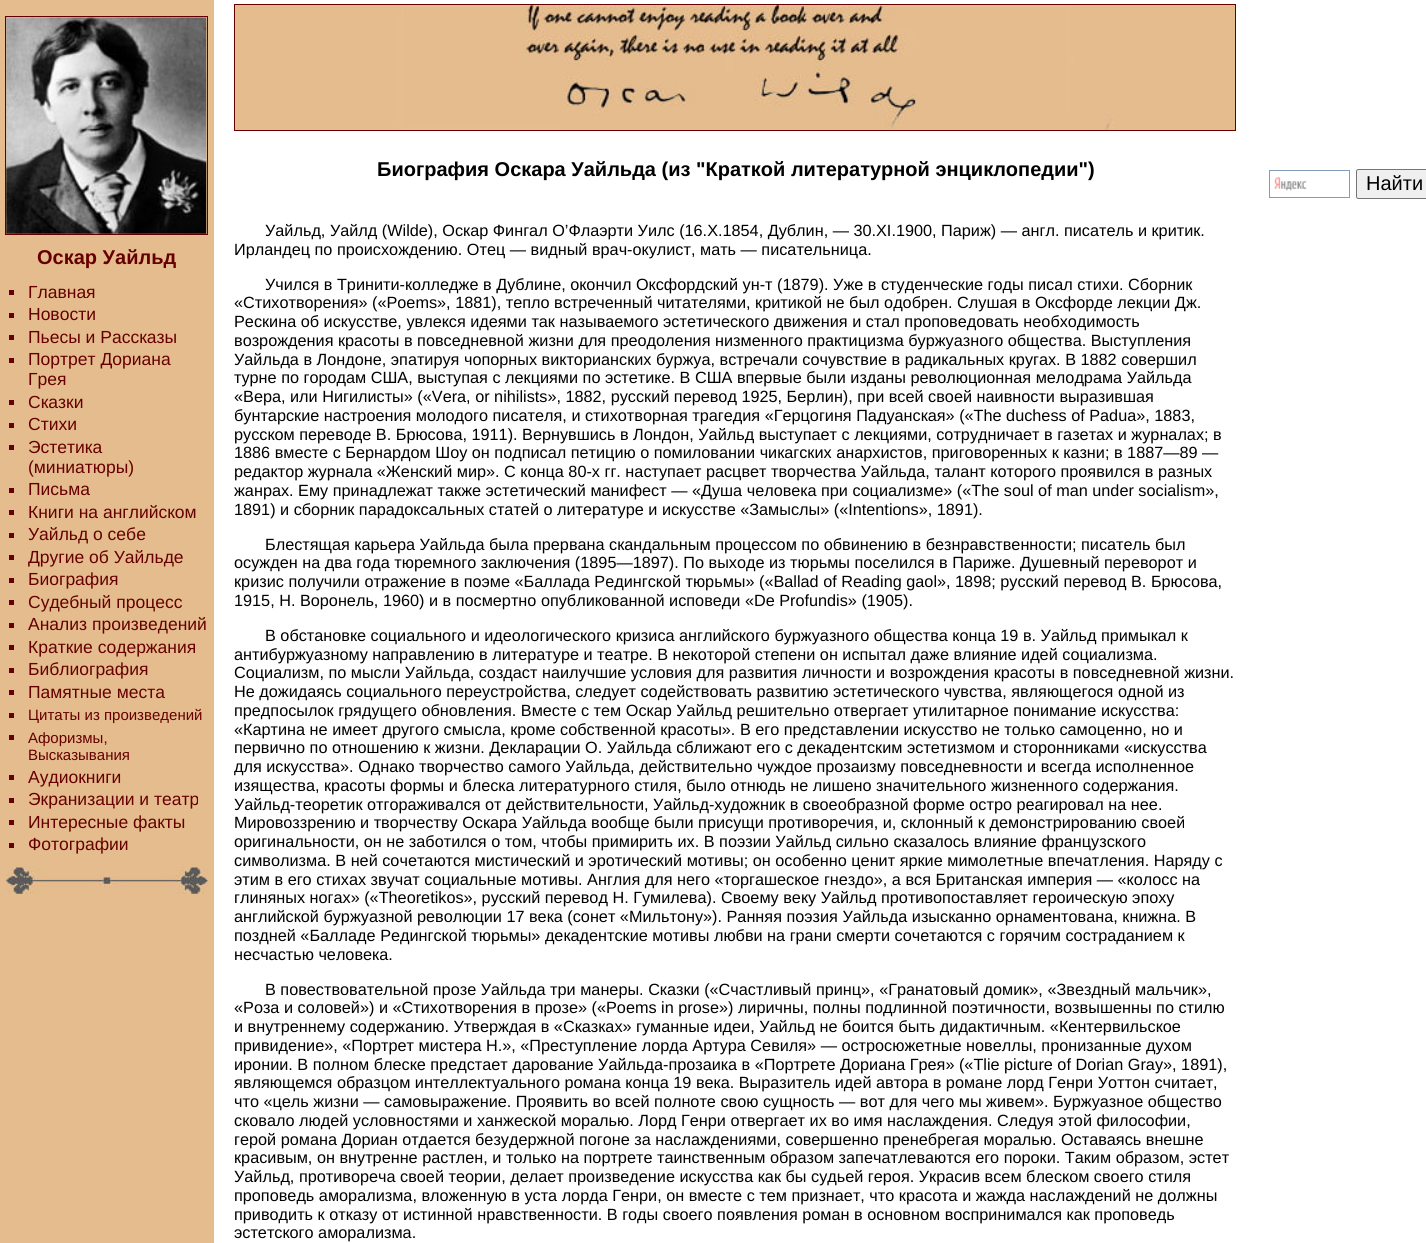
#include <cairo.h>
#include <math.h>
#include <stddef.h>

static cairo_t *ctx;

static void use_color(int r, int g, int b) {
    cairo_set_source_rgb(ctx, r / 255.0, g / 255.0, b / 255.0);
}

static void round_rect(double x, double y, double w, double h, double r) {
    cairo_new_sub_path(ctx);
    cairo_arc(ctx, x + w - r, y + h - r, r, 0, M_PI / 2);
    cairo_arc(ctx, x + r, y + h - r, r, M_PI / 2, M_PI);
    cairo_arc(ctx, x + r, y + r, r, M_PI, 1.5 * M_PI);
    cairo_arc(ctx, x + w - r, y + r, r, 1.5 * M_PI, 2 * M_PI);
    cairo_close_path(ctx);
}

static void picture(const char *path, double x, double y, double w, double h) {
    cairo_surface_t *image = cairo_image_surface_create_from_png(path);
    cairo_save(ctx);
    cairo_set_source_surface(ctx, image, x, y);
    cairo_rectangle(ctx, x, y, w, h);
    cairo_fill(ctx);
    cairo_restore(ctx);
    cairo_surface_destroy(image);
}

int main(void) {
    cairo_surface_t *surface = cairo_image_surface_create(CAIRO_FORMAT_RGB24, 1426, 1243);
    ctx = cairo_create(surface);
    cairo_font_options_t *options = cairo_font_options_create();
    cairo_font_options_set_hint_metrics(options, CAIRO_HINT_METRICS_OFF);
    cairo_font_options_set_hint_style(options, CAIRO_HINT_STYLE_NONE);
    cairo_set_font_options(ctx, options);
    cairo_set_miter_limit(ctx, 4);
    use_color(255, 255, 255);
    cairo_paint(ctx);
    cairo_rectangle(ctx, 234.5, 4.5, 1001, 126);
    use_color(102, 0, 0);
    cairo_set_line_width(ctx, 1);
    cairo_stroke(ctx);
    picture("img1.png", 235, 5, 1000, 125);
    cairo_select_font_face(ctx, "Liberation Sans", CAIRO_FONT_SLANT_NORMAL, CAIRO_FONT_WEIGHT_BOLD);
    cairo_set_font_size(ctx, 20);
    use_color(0, 0, 0);
    cairo_move_to(ctx, 377, 176);
    cairo_show_text(ctx, "Биография Оскара Уайльда (из \"Краткой литературной энциклопедии\")");
    cairo_select_font_face(ctx, "Liberation Sans", CAIRO_FONT_SLANT_NORMAL, CAIRO_FONT_WEIGHT_NORMAL);
    cairo_set_font_size(ctx, 16.25);
    cairo_move_to(ctx, 265, 236);
    cairo_show_text(ctx, "Уайльд, Уайлд (Wilde), Оскар Фингал О’Флаэрти Уилс (16.X.1854, Дублин, — 30.XI.1900, Париж) — англ. писатель и критик.");
    cairo_move_to(ctx, 234, 255);
    cairo_show_text(ctx, "Ирландец по происхождению. Отец — видный врач-окулист, мать — писательница.");
    cairo_move_to(ctx, 265, 290);
    cairo_show_text(ctx, "Учился в Тринити-колледже в Дублине, окончил Оксфордский ун-т (1879). Уже в студенческие годы писал стихи. Сборник");
    cairo_move_to(ctx, 234, 308);
    cairo_show_text(ctx, "«Стихотворения» («Poems», 1881), тепло встреченный читателями, критикой не был одобрен. Слушая в Оксфорде лекции Дж.");
    cairo_move_to(ctx, 234, 327);
    cairo_show_text(ctx, "Рескина об искусстве, увлекся идеями так называемого эстетического движения и стал проповедовать необходимость");
    cairo_move_to(ctx, 234, 346);
    cairo_show_text(ctx, "возрождения красоты в повседневной жизни для преодоления низменного практицизма буржуазного общества. Выступления");
    cairo_move_to(ctx, 234, 365);
    cairo_show_text(ctx, "Уайльда в Лондоне, эпатируя чопорных викторианских буржуа, встречали сочувствие в радикальных кругах. В 1882 совершил");
    cairo_move_to(ctx, 234, 383);
    cairo_show_text(ctx, "турне по городам США, выступая с лекциями по эстетике. В США впервые были изданы революционная мелодрама Уайльда");
    cairo_move_to(ctx, 234, 402);
    cairo_show_text(ctx, "«Вера, или Нигилисты» («Vera, or nihilists», 1882, русский перевод 1925, Берлин), при всей своей наивности выразившая");
    cairo_move_to(ctx, 234, 421);
    cairo_show_text(ctx, "бунтарские настроения молодого писателя, и стихотворная трагедия «Герцогиня Падуанская» («The duchess of Padua», 1883,");
    cairo_move_to(ctx, 234, 440);
    cairo_show_text(ctx, "русском переводе В. Брюсова, 1911). Вернувшись в Лондон, Уайльд выступает с лекциями, сотрудничает в газетах и журналах; в");
    cairo_move_to(ctx, 234, 458);
    cairo_show_text(ctx, "1886 вместе с Бернардом Шоу он подписал петицию о помиловании чикагских анархистов, приговоренных к казни; в 1887—89 —");
    cairo_move_to(ctx, 234, 477);
    cairo_show_text(ctx, "редактор журнала «Женский мир». С конца 80-х гг. наступает расцвет творчества Уайльда, талант которого проявился в разных");
    cairo_move_to(ctx, 234, 496);
    cairo_show_text(ctx, "жанрах. Ему принадлежат также эстетический манифест — «Душа человека при социализме» («The soul of man under socialism»,");
    cairo_move_to(ctx, 234, 515);
    cairo_show_text(ctx, "1891) и сборник парадоксальных статей о литературе и искусстве «Замыслы» («Intentions», 1891).");
    cairo_move_to(ctx, 265, 550);
    cairo_show_text(ctx, "Блестящая карьера Уайльда была прервана скандальным процессом по обвинению в безнравственности; писатель был");
    cairo_move_to(ctx, 234, 568);
    cairo_show_text(ctx, "осужден на два года тюремного заключения (1895—1897). По выходе из тюрьмы поселился в Париже. Душевный переворот и");
    cairo_move_to(ctx, 234, 587);
    cairo_show_text(ctx, "кризис получили отражение в поэме «Баллада Редингской тюрьмы» («Ballad of Reading gaol», 1898; русский перевод В. Брюсова,");
    cairo_move_to(ctx, 234, 606);
    cairo_show_text(ctx, "1915, Н. Воронель, 1960) и в посмертно опубликованной исповеди «De Profundis» (1905).");
    cairo_move_to(ctx, 265, 641);
    cairo_show_text(ctx, "В обстановке социального и идеологического кризиса английского буржуазного общества конца 19 в. Уайльд примыкал к");
    cairo_move_to(ctx, 234, 660);
    cairo_show_text(ctx, "антибуржуазному направлению в литературе и театре. В некоторой степени он испытал даже влияние идей социализма.");
    cairo_move_to(ctx, 234, 678);
    cairo_show_text(ctx, "Социализм, по мысли Уайльда, создаст наилучшие условия для развития личности и возрождения красоты в повседневной жизни.");
    cairo_move_to(ctx, 234, 697);
    cairo_show_text(ctx, "Не дожидаясь социального переустройства, следует содействовать развитию эстетического чувства, являющегося одной из");
    cairo_move_to(ctx, 234, 716);
    cairo_show_text(ctx, "предпосылок грядущего обновления. Вместе с тем Оскар Уайльд решительно отвергает утилитарное понимание искусства:");
    cairo_move_to(ctx, 234, 735);
    cairo_show_text(ctx, "«Картина не имеет другого смысла, кроме собственной красоты». В его представлении искусство не только самоценно, но и");
    cairo_move_to(ctx, 234, 753);
    cairo_show_text(ctx, "первично по отношению к жизни. Декларации О. Уайльда сближают его с декадентским эстетизмом и сторонниками «искусства");
    cairo_move_to(ctx, 234, 772);
    cairo_show_text(ctx, "для искусства». Однако творчество самого Уайльда, действительно чуждое прозаизму повседневности и всегда исполненное");
    cairo_move_to(ctx, 234, 791);
    cairo_show_text(ctx, "изящества, красоты формы и блеска литературного стиля, было отнюдь не лишено значительного жизненного содержания.");
    cairo_move_to(ctx, 234, 810);
    cairo_show_text(ctx, "Уайльд-теоретик отгораживался от действительности, Уайльд-художник в своеобразной форме остро реагировал на нее.");
    cairo_move_to(ctx, 234, 828);
    cairo_show_text(ctx, "Мировоззрению и творчеству Оскара Уайльда вообще были присущи противоречия, и, склонный к демонстрированию своей");
    cairo_move_to(ctx, 234, 847);
    cairo_show_text(ctx, "оригинальности, он не заботился о том, чтобы примирить их. В поэзии Уайльд сильно сказалось влияние французского");
    cairo_move_to(ctx, 234, 866);
    cairo_show_text(ctx, "символизма. В ней сочетаются мистический и эротический мотивы; он особенно ценит яркие мимолетные впечатления. Наряду с");
    cairo_move_to(ctx, 234, 885);
    cairo_show_text(ctx, "этим в его стихах звучат социальные мотивы. Англия для него «торгашеское гнездо», а вся Британская империя — «колосс на");
    cairo_move_to(ctx, 234, 903);
    cairo_show_text(ctx, "глиняных ногах» («Theoretikos», русский перевод Н. Гумилева). Своему веку Уайльд противопоставляет героическую эпоху");
    cairo_move_to(ctx, 234, 922);
    cairo_show_text(ctx, "английской буржуазной революции 17 века (сонет «Мильтону»). Ранняя поэзия Уайльда изысканно орнаментована, книжна. В");
    cairo_move_to(ctx, 234, 941);
    cairo_show_text(ctx, "поздней «Балладе Редингской тюрьмы» декадентские мотивы любви на грани смерти сочетаются с горячим состраданием к");
    cairo_move_to(ctx, 234, 960);
    cairo_show_text(ctx, "несчастью человека.");
    cairo_move_to(ctx, 265, 995);
    cairo_show_text(ctx, "В повествовательной прозе Уайльда три манеры. Сказки («Счастливый принц», «Гранатовый домик», «Звездный мальчик»,");
    cairo_move_to(ctx, 234, 1013);
    cairo_show_text(ctx, "«Роза и соловей») и «Стихотворения в прозе» («Poems in prose») лиричны, полны подлинной поэтичности, возвышенны по стилю");
    cairo_move_to(ctx, 234, 1032);
    cairo_show_text(ctx, "и внутреннему содержанию. Утверждая в «Сказках» гуманные идеи, Уайльд не боится быть дидактичным. «Кентервильское");
    cairo_move_to(ctx, 234, 1051);
    cairo_show_text(ctx, "привидение», «Портрет мистера Н.», «Преступление лорда Артура Севиля» — остросюжетные новеллы, пронизанные духом");
    cairo_move_to(ctx, 234, 1070);
    cairo_show_text(ctx, "иронии. В полном блеске предстает дарование Уайльда-прозаика в «Портрете Дориана Грея» («Tlie picture of Dorian Gray», 1891),");
    cairo_move_to(ctx, 234, 1088);
    cairo_show_text(ctx, "являющемся образцом интеллектуального романа конца 19 века. Выразитель идей автора в романе лорд Генри Уоттон считает,");
    cairo_move_to(ctx, 234, 1107);
    cairo_show_text(ctx, "что «цель жизни — самовыражение. Проявить во всей полноте свою сущность — вот для чего мы живем». Буржуазное общество");
    cairo_move_to(ctx, 234, 1126);
    cairo_show_text(ctx, "сковало людей условностями и ханжеской моралью. Лорд Генри отвергает их во имя наслаждения. Следуя этой философии,");
    cairo_move_to(ctx, 234, 1145);
    cairo_show_text(ctx, "герой романа Дориан отдается безудержной погоне за наслаждениями, совершенно пренебрегая моралью. Оставаясь внешне");
    cairo_move_to(ctx, 234, 1163);
    cairo_show_text(ctx, "красивым, он внутренне растлен, и только на портрете таинственным образом запечатлеваются его пороки. Таким образом, эстет");
    cairo_move_to(ctx, 234, 1182);
    cairo_show_text(ctx, "Уайльд, противореча своей теории, делает произведение искусства как бы судьей героя. Украсив всем блеском своего стиля");
    cairo_move_to(ctx, 234, 1201);
    cairo_show_text(ctx, "проповедь аморализма, вложенную в уста лорда Генри, он вместе с тем признает, что красота и жажда наслаждений не должны");
    cairo_move_to(ctx, 234, 1220);
    cairo_show_text(ctx, "приводить к отказу от истинной нравственности. В годы своего появления роман в основном воспринимался как проповедь");
    cairo_move_to(ctx, 234, 1238);
    cairo_show_text(ctx, "эстетского аморализма.");
    picture("img2.png", 1274, 177, 33, 14);
    cairo_rectangle(ctx, 1269.5, 170.5, 80, 27);
    use_color(127, 157, 185);
    cairo_stroke(ctx);
    use_color(239, 239, 239);
    round_rect(1356.5, 169.5, 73, 29, 2);
    cairo_fill_preserve(ctx);
    use_color(118, 118, 118);
    cairo_stroke(ctx);
    cairo_set_font_size(ctx, 20);
    use_color(0, 0, 0);
    cairo_move_to(ctx, 1366, 190);
    cairo_show_text(ctx, "Найти");
    use_color(228, 188, 142);
    cairo_rectangle(ctx, 0, 0, 214, 1243);
    cairo_fill(ctx);
    cairo_rectangle(ctx, 5.5, 16.5, 202, 218);
    use_color(102, 0, 0);
    cairo_stroke(ctx);
    picture("img3.png", 6, 17, 201, 217);
    cairo_select_font_face(ctx, "Liberation Sans", CAIRO_FONT_SLANT_NORMAL, CAIRO_FONT_WEIGHT_BOLD);
    cairo_move_to(ctx, 37, 264);
    cairo_show_text(ctx, "Оскар Уайльд");
    cairo_rectangle(ctx, 9, 290, 5, 5);
    cairo_fill(ctx);
    cairo_select_font_face(ctx, "Liberation Sans", CAIRO_FONT_SLANT_NORMAL, CAIRO_FONT_WEIGHT_NORMAL);
    cairo_set_font_size(ctx, 17.5);
    cairo_move_to(ctx, 28, 298);
    cairo_show_text(ctx, "Главная");
    cairo_rectangle(ctx, 9, 313, 5, 5);
    cairo_fill(ctx);
    cairo_move_to(ctx, 28, 320);
    cairo_show_text(ctx, "Новости");
    cairo_rectangle(ctx, 9, 335, 5, 5);
    cairo_fill(ctx);
    cairo_move_to(ctx, 28, 343);
    cairo_show_text(ctx, "Пьесы и Рассказы");
    cairo_rectangle(ctx, 9, 358, 5, 5);
    cairo_fill(ctx);
    cairo_move_to(ctx, 28, 365);
    cairo_show_text(ctx, "Портрет Дориана");
    cairo_move_to(ctx, 28, 385);
    cairo_show_text(ctx, "Грея");
    cairo_rectangle(ctx, 9, 400, 5, 5);
    cairo_fill(ctx);
    cairo_move_to(ctx, 28, 408);
    cairo_show_text(ctx, "Сказки");
    cairo_rectangle(ctx, 9, 423, 5, 5);
    cairo_fill(ctx);
    cairo_move_to(ctx, 28, 430);
    cairo_show_text(ctx, "Стихи");
    cairo_rectangle(ctx, 9, 445, 5, 5);
    cairo_fill(ctx);
    cairo_move_to(ctx, 28, 453);
    cairo_show_text(ctx, "Эстетика");
    cairo_move_to(ctx, 28, 473);
    cairo_show_text(ctx, "(миниатюры)");
    cairo_rectangle(ctx, 9, 488, 5, 5);
    cairo_fill(ctx);
    cairo_move_to(ctx, 28, 495);
    cairo_show_text(ctx, "Письма");
    cairo_rectangle(ctx, 9, 510, 5, 5);
    cairo_fill(ctx);
    cairo_move_to(ctx, 28, 518);
    cairo_show_text(ctx, "Книги на английском");
    cairo_rectangle(ctx, 9, 533, 5, 5);
    cairo_fill(ctx);
    cairo_move_to(ctx, 28, 540);
    cairo_show_text(ctx, "Уайльд о себе");
    cairo_rectangle(ctx, 9, 555, 5, 5);
    cairo_fill(ctx);
    cairo_move_to(ctx, 28, 563);
    cairo_show_text(ctx, "Другие об Уайльде");
    cairo_rectangle(ctx, 9, 578, 5, 5);
    cairo_fill(ctx);
    cairo_move_to(ctx, 28, 585);
    cairo_show_text(ctx, "Биография");
    cairo_rectangle(ctx, 9, 600, 5, 5);
    cairo_fill(ctx);
    cairo_move_to(ctx, 28, 608);
    cairo_show_text(ctx, "Судебный процесс");
    cairo_rectangle(ctx, 9, 623, 5, 5);
    cairo_fill(ctx);
    cairo_move_to(ctx, 28, 630);
    cairo_show_text(ctx, "Анализ произведений");
    cairo_rectangle(ctx, 9, 645, 5, 5);
    cairo_fill(ctx);
    cairo_move_to(ctx, 28, 653);
    cairo_show_text(ctx, "Краткие содержания");
    cairo_rectangle(ctx, 9, 668, 5, 5);
    cairo_fill(ctx);
    cairo_move_to(ctx, 28, 675);
    cairo_show_text(ctx, "Библиография");
    cairo_rectangle(ctx, 9, 690, 5, 5);
    cairo_fill(ctx);
    cairo_move_to(ctx, 28, 698);
    cairo_show_text(ctx, "Памятные места");
    cairo_rectangle(ctx, 9, 713, 5, 5);
    cairo_fill(ctx);
    cairo_set_font_size(ctx, 15);
    cairo_move_to(ctx, 28, 720);
    cairo_show_text(ctx, "Цитаты из произведений");
    cairo_rectangle(ctx, 9, 735, 5, 5);
    cairo_fill(ctx);
    cairo_move_to(ctx, 28, 743);
    cairo_show_text(ctx, "Афоризмы,");
    cairo_move_to(ctx, 28, 760);
    cairo_show_text(ctx, "Высказывания");
    cairo_rectangle(ctx, 9, 775, 5, 5);
    cairo_fill(ctx);
    cairo_set_font_size(ctx, 17.5);
    cairo_move_to(ctx, 28, 783);
    cairo_show_text(ctx, "Аудиокниги");
    cairo_rectangle(ctx, 9, 798, 5, 5);
    cairo_fill(ctx);
    cairo_move_to(ctx, 28, 805);
    cairo_show_text(ctx, "Экранизации и театр");
    cairo_rectangle(ctx, 9, 820, 5, 5);
    cairo_fill(ctx);
    cairo_move_to(ctx, 28, 828);
    cairo_show_text(ctx, "Интересные факты");
    cairo_rectangle(ctx, 9, 843, 5, 5);
    cairo_fill(ctx);
    cairo_move_to(ctx, 28, 850);
    cairo_show_text(ctx, "Фотографии");
    picture("img4.png", 6, 867, 202, 27);
    cairo_surface_write_to_png(surface, "result.png");
    cairo_font_options_destroy(options);
    cairo_destroy(ctx);
    cairo_surface_destroy(surface);
    return 0;
}
